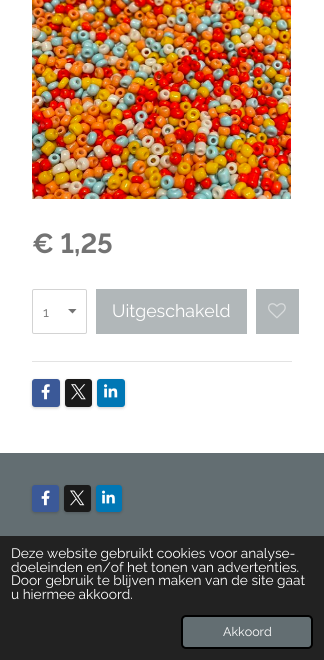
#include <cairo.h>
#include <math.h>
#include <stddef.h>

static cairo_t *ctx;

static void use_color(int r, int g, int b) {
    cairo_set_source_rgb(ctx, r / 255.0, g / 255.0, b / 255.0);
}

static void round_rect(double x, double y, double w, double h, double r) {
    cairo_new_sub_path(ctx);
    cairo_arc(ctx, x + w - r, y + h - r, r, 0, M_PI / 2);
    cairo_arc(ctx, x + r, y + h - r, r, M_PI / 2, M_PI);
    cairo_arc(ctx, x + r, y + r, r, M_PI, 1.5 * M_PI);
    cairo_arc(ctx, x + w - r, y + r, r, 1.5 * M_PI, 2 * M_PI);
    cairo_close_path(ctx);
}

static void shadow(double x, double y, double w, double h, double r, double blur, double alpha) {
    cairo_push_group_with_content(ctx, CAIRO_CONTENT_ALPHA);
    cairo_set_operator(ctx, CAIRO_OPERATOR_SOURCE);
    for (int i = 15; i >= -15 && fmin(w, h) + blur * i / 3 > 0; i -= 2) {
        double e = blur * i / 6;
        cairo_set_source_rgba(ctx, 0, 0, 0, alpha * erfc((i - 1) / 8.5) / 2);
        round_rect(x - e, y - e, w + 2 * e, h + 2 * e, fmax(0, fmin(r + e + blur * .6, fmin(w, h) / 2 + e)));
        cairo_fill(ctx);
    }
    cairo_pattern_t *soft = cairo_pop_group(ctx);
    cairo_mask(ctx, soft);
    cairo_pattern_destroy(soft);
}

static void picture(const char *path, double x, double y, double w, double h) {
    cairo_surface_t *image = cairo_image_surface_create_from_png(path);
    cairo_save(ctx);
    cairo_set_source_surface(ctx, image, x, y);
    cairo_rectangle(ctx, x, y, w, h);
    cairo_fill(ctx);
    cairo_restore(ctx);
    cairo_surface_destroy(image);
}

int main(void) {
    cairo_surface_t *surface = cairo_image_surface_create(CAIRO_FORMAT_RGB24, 324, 660);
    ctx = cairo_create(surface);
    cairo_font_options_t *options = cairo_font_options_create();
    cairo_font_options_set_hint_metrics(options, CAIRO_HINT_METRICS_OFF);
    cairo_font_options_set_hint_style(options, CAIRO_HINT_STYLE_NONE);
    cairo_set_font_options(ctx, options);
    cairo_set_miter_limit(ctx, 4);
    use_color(255, 255, 255);
    cairo_paint(ctx);
    picture("img1.png", 32, 0, 259, 199);
    cairo_select_font_face(ctx, "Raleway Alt", CAIRO_FONT_SLANT_NORMAL, CAIRO_FONT_WEIGHT_BOLD);
    cairo_set_font_size(ctx, 27.5);
    use_color(115, 115, 115);
    cairo_move_to(ctx, 32, 253);
    cairo_show_text(ctx, "€ 1,25");
    cairo_new_path(ctx);
    cairo_move_to(ctx, 72.5, 313.5);
    cairo_line_to(ctx, 68, 309);
    cairo_line_to(ctx, 76.5, 309);
    cairo_close_path(ctx);
    cairo_fill(ctx);
    round_rect(32.5, 289.5, 54, 44, 1.5);
    use_color(211, 211, 211);
    cairo_set_line_width(ctx, 1);
    cairo_stroke(ctx);
    cairo_select_font_face(ctx, "Raleway", CAIRO_FONT_SLANT_NORMAL, CAIRO_FONT_WEIGHT_NORMAL);
    cairo_set_font_size(ctx, 13.7);
    use_color(115, 115, 115);
    cairo_move_to(ctx, 43, 317);
    cairo_show_text(ctx, "1");
    use_color(177, 183, 185);
    cairo_rectangle(ctx, 96, 289, 151, 45);
    cairo_fill(ctx);
    cairo_set_font_size(ctx, 17.75);
    use_color(255, 255, 255);
    cairo_move_to(ctx, 112, 317);
    cairo_show_text(ctx, "Uitgeschakeld");
    use_color(177, 183, 185);
    cairo_rectangle(ctx, 256, 289, 43, 45);
    cairo_fill(ctx);
    picture("img2.png", 268, 303, 18, 16);
    use_color(227, 227, 227);
    cairo_rectangle(ctx, 32, 361, 260, 1);
    cairo_fill(ctx);
    use_color(0, 0, 0);
    shadow(32, 380, 28, 28, 3, 1.5, 0.2);
    use_color(59, 89, 152);
    round_rect(32, 379, 28, 28, 3);
    cairo_fill(ctx);
    picture("img3.png", 41, 384, 9, 16);
    use_color(0, 0, 0);
    shadow(65, 380, 27, 28, 3, 1.5, 0.2);
    use_color(26, 26, 26);
    round_rect(65, 379, 27, 28, 3);
    cairo_fill(ctx);
    picture("img4.png", 71, 384, 15, 16);
    use_color(0, 0, 0);
    shadow(97, 380, 28, 28, 3, 1.5, 0.2);
    use_color(0, 119, 181);
    round_rect(97, 379, 28, 28, 3);
    cairo_fill(ctx);
    picture("img5.png", 104, 384, 14, 14);
    use_color(99, 110, 114);
    cairo_rectangle(ctx, 0, 453, 324, 83);
    cairo_fill(ctx);
    use_color(0, 0, 0);
    shadow(32, 486, 27, 27, 3, 1.5, 0.2);
    use_color(59, 89, 152);
    round_rect(32, 485, 27, 27, 3);
    cairo_fill(ctx);
    picture("img6.png", 41, 490, 9, 16);
    use_color(0, 0, 0);
    shadow(64, 486, 27, 27, 3, 1.5, 0.2);
    use_color(26, 26, 26);
    round_rect(64, 485, 27, 27, 3);
    cairo_fill(ctx);
    picture("img7.png", 70, 490, 15, 16);
    use_color(0, 0, 0);
    shadow(96, 486, 26, 27, 3, 1.5, 0.2);
    use_color(0, 119, 181);
    round_rect(96, 485, 26, 27, 3);
    cairo_fill(ctx);
    picture("img8.png", 102, 490, 13, 14);
    use_color(34, 34, 34);
    cairo_rectangle(ctx, 0, 536, 324, 124);
    cairo_fill(ctx);
    cairo_set_font_size(ctx, 13.7);
    use_color(255, 255, 255);
    cairo_move_to(ctx, 11, 558);
    cairo_show_text(ctx, "Deze website gebruikt cookies voor analyse-");
    cairo_move_to(ctx, 11, 572);
    cairo_show_text(ctx, "doeleinden en/of het tonen van advertenties.");
    cairo_move_to(ctx, 11, 585);
    cairo_show_text(ctx, "Door gebruik te blijven maken van de site gaat");
    cairo_move_to(ctx, 11, 599);
    cairo_show_text(ctx, "u hiermee akkoord.");
    use_color(99, 110, 114);
    round_rect(182, 616, 130, 32, 4);
    cairo_fill_preserve(ctx);
    use_color(0, 0, 0);
    cairo_set_line_width(ctx, 2);
    cairo_stroke(ctx);
    cairo_set_font_size(ctx, 12.5);
    use_color(255, 255, 255);
    cairo_move_to(ctx, 223, 636);
    cairo_show_text(ctx, "Akkoord");
    cairo_surface_write_to_png(surface, "result.png");
    cairo_font_options_destroy(options);
    cairo_destroy(ctx);
    cairo_surface_destroy(surface);
    return 0;
}
